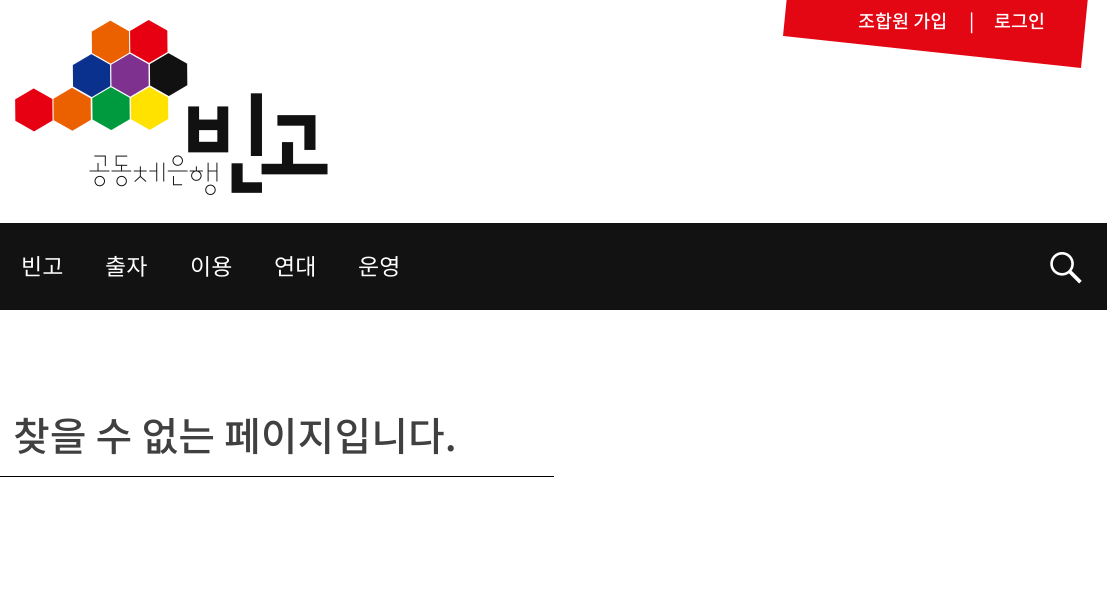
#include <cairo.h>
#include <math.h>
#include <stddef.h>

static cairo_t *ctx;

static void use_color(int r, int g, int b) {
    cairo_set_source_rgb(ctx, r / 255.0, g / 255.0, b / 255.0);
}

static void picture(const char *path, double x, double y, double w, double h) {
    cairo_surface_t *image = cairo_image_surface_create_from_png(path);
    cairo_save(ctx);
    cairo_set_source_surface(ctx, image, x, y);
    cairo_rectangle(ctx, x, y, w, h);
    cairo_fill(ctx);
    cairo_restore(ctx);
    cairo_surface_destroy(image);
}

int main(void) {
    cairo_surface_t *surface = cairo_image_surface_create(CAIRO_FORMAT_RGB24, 1107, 614);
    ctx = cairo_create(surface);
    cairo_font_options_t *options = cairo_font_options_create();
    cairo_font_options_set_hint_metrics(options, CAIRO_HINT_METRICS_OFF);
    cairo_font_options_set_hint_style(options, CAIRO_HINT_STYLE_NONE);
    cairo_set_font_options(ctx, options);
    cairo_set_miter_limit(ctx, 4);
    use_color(255, 255, 255);
    cairo_paint(ctx);
    picture("img1.png", 15, 20, 313, 175);
    use_color(227, 6, 19);
    cairo_new_path(ctx);
    cairo_move_to(ctx, 791, -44);
    cairo_line_to(ctx, 1089, -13);
    cairo_line_to(ctx, 1081, 68);
    cairo_line_to(ctx, 783, 36);
    cairo_close_path(ctx);
    cairo_fill(ctx);
    cairo_select_font_face(ctx, "Noto Sans KR Medium", CAIRO_FONT_SLANT_NORMAL, CAIRO_FONT_WEIGHT_NORMAL);
    cairo_set_font_size(ctx, 18.5);
    use_color(255, 255, 255);
    cairo_move_to(ctx, 858, 28);
    cairo_show_text(ctx, "조합원 가입");
    cairo_move_to(ctx, 969, 28);
    cairo_show_text(ctx, "|");
    cairo_move_to(ctx, 994, 28);
    cairo_show_text(ctx, "로그인");
    use_color(18, 18, 18);
    cairo_rectangle(ctx, 0, 223, 1107, 87);
    cairo_fill(ctx);
    cairo_select_font_face(ctx, "Noto Sans KR", CAIRO_FONT_SLANT_NORMAL, CAIRO_FONT_WEIGHT_NORMAL);
    cairo_set_font_size(ctx, 23);
    use_color(255, 255, 255);
    cairo_move_to(ctx, 21, 275);
    cairo_show_text(ctx, "빈고");
    cairo_move_to(ctx, 105, 275);
    cairo_show_text(ctx, "출자");
    cairo_move_to(ctx, 190, 275);
    cairo_show_text(ctx, "이용");
    cairo_move_to(ctx, 274, 275);
    cairo_show_text(ctx, "연대");
    cairo_move_to(ctx, 358, 275);
    cairo_show_text(ctx, "운영");
    picture("img2.png", 1050, 252, 32, 32);
    cairo_select_font_face(ctx, "Noto Sans KR Medium", CAIRO_FONT_SLANT_NORMAL, CAIRO_FONT_WEIGHT_NORMAL);
    cairo_set_font_size(ctx, 40);
    use_color(64, 64, 64);
    cairo_move_to(ctx, 13, 451);
    cairo_show_text(ctx, "찾을 수 없는 페이지입니다.");
    use_color(0, 0, 0);
    cairo_rectangle(ctx, 0, 476, 554, 1);
    cairo_fill(ctx);
    cairo_surface_write_to_png(surface, "result.png");
    cairo_font_options_destroy(options);
    cairo_destroy(ctx);
    cairo_surface_destroy(surface);
    return 0;
}
